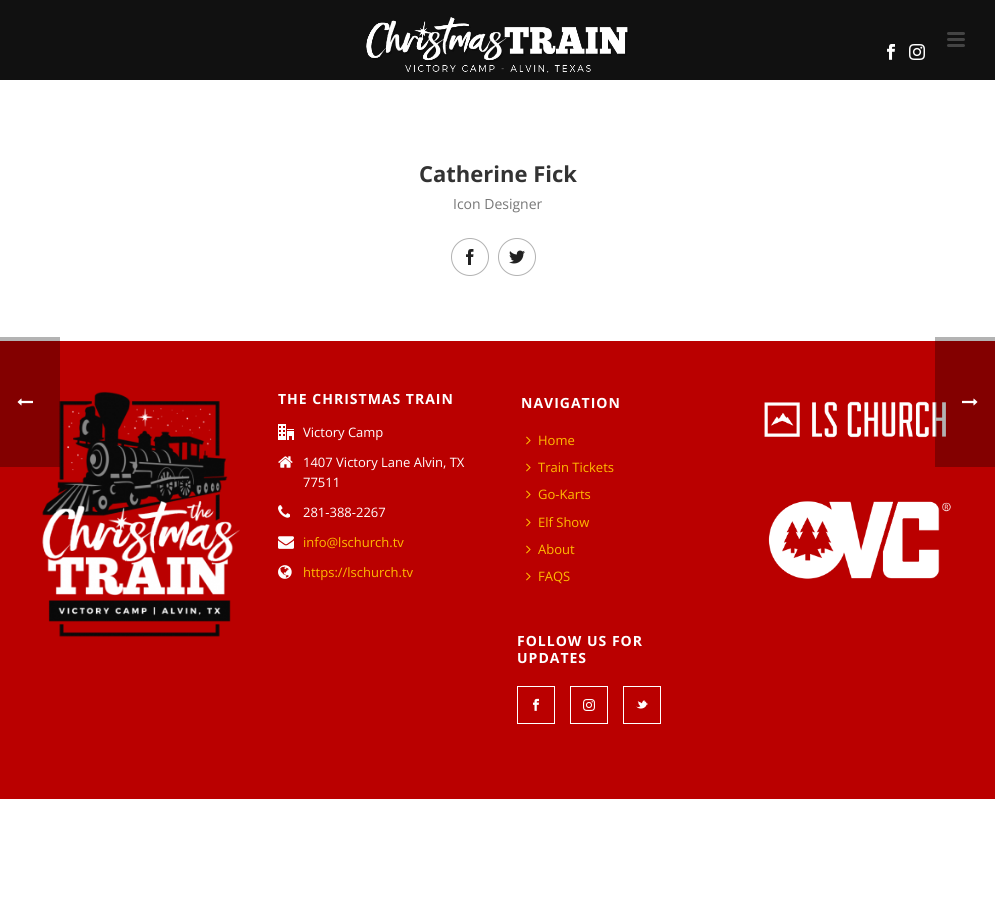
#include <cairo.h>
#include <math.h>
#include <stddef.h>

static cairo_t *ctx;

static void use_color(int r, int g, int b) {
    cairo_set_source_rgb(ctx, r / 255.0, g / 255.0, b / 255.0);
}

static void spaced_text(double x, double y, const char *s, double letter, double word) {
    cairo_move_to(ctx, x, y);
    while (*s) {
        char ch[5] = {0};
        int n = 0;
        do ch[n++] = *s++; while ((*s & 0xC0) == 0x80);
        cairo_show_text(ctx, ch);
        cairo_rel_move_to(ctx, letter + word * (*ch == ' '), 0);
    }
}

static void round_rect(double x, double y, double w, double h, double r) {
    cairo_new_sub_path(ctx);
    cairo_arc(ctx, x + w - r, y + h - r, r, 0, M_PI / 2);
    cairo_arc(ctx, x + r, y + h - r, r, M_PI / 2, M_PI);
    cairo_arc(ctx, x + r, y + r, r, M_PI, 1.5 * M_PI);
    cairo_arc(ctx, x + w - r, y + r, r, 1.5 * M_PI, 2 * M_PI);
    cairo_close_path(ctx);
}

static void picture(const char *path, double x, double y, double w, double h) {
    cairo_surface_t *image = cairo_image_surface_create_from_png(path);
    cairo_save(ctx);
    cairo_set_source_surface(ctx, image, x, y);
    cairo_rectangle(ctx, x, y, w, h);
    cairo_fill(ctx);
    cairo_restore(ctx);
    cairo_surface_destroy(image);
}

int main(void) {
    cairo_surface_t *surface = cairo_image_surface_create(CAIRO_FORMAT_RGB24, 995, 904);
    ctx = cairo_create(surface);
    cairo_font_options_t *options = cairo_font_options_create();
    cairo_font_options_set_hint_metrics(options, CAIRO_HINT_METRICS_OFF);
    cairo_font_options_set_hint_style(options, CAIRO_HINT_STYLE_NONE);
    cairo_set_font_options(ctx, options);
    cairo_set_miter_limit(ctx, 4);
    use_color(255, 255, 255);
    cairo_paint(ctx);
    use_color(186, 0, 0);
    cairo_rectangle(ctx, 0, 341, 995, 458);
    cairo_fill(ctx);
    picture("img7.png", 42, 391, 198, 246);
    cairo_set_source_rgba(ctx, 0, 0, 0, 0.3);
    cairo_rectangle(ctx, 0, 337, 60, 130);
    cairo_fill(ctx);
    picture("img1.png", 17, 398, 16, 8);
    use_color(17, 17, 17);
    cairo_rectangle(ctx, 0, 0, 995, 80);
    cairo_fill(ctx);
    picture("img2.png", 366, 17, 263, 56);
    use_color(68, 68, 68);
    round_rect(947, 32, 18, 3, 1.5);
    cairo_fill(ctx);
    round_rect(947, 38, 18, 3, 1.5);
    cairo_fill(ctx);
    round_rect(947, 44, 18, 3, 1.5);
    cairo_fill(ctx);
    picture("img3.png", 887, 44, 8, 16);
    picture("img4.png", 909, 44, 16, 16);
    cairo_select_font_face(ctx, "Open Sans", CAIRO_FONT_SLANT_NORMAL, CAIRO_FONT_WEIGHT_BOLD);
    cairo_set_font_size(ctx, 22);
    use_color(51, 51, 51);
    cairo_move_to(ctx, 419, 182);
    cairo_show_text(ctx, "Catherine Fick");
    cairo_select_font_face(ctx, "Open Sans", CAIRO_FONT_SLANT_NORMAL, CAIRO_FONT_WEIGHT_NORMAL);
    cairo_set_font_size(ctx, 14);
    use_color(119, 119, 119);
    cairo_move_to(ctx, 453, 209);
    cairo_show_text(ctx, "Icon Designer");
    cairo_new_path(ctx);
    cairo_arc(ctx, 470, 257, 18.5, 0, 2 * M_PI);
    use_color(178, 178, 178);
    cairo_set_line_width(ctx, 1);
    cairo_stroke(ctx);
    picture("img5.png", 466, 249, 8, 16);
    cairo_arc(ctx, 517, 257, 18.5, 0, 2 * M_PI);
    cairo_stroke(ctx);
    picture("img6.png", 509, 250, 16, 14);
    cairo_select_font_face(ctx, "Open Sans", CAIRO_FONT_SLANT_NORMAL, CAIRO_FONT_WEIGHT_BOLD);
    use_color(255, 255, 255);
    spaced_text(278, 404, "THE CHRISTMAS TRAIN", 1, 0);
    picture("img8.png", 278, 424, 16, 16);
    cairo_select_font_face(ctx, "Open Sans", CAIRO_FONT_SLANT_NORMAL, CAIRO_FONT_WEIGHT_NORMAL);
    cairo_set_font_size(ctx, 13);
    cairo_move_to(ctx, 303, 437);
    cairo_show_text(ctx, "Victory Camp");
    picture("img9.png", 278, 456, 15, 12);
    cairo_move_to(ctx, 303, 467);
    cairo_show_text(ctx, "1407 Victory Lane Alvin, TX");
    cairo_move_to(ctx, 303, 487);
    cairo_show_text(ctx, "77511");
    picture("img10.png", 278, 505, 12, 13);
    cairo_move_to(ctx, 303, 517);
    cairo_show_text(ctx, "281-388-2267");
    picture("img11.png", 278, 536, 16, 13);
    use_color(255, 187, 0);
    cairo_move_to(ctx, 303, 547);
    cairo_show_text(ctx, "info@lschurch.tv");
    picture("img12.png", 278, 565, 14, 14);
    cairo_move_to(ctx, 303, 577);
    cairo_show_text(ctx, "https://lschurch.tv");
    cairo_select_font_face(ctx, "Open Sans", CAIRO_FONT_SLANT_NORMAL, CAIRO_FONT_WEIGHT_BOLD);
    cairo_set_font_size(ctx, 14);
    use_color(255, 255, 255);
    spaced_text(521, 408, "NAVIGATION", 1, 0);
    picture("img13.png", 526, 436, 5, 9);
    cairo_select_font_face(ctx, "Open Sans", CAIRO_FONT_SLANT_NORMAL, CAIRO_FONT_WEIGHT_NORMAL);
    cairo_set_font_size(ctx, 13);
    use_color(255, 187, 0);
    cairo_move_to(ctx, 538, 445);
    cairo_show_text(ctx, "Home");
    picture("img13.png", 526, 463, 5, 9);
    cairo_move_to(ctx, 538, 472);
    cairo_show_text(ctx, "Train Tickets");
    picture("img13.png", 526, 490, 5, 9);
    cairo_move_to(ctx, 538, 499);
    cairo_show_text(ctx, "Go-Karts");
    picture("img13.png", 526, 518, 5, 9);
    cairo_move_to(ctx, 538, 527);
    cairo_show_text(ctx, "Elf Show");
    picture("img13.png", 526, 545, 5, 9);
    cairo_move_to(ctx, 538, 554);
    cairo_show_text(ctx, "About");
    picture("img13.png", 526, 572, 5, 9);
    cairo_move_to(ctx, 538, 581);
    cairo_show_text(ctx, "FAQS");
    cairo_select_font_face(ctx, "Open Sans", CAIRO_FONT_SLANT_NORMAL, CAIRO_FONT_WEIGHT_BOLD);
    cairo_set_font_size(ctx, 14);
    use_color(255, 255, 255);
    spaced_text(517, 646, "FOLLOW US FOR", 1, 0);
    spaced_text(517, 663, "UPDATES", 1, 0);
    cairo_rectangle(ctx, 517.5, 686.5, 37, 37);
    cairo_stroke(ctx);
    picture("img14.png", 533, 698, 6, 13);
    cairo_rectangle(ctx, 570.5, 686.5, 37, 37);
    cairo_stroke(ctx);
    picture("img15.png", 583, 699, 12, 12);
    cairo_rectangle(ctx, 623.5, 686.5, 37, 37);
    cairo_stroke(ctx);
    picture("img16.png", 636, 700, 12, 9);
    picture("img17.png", 764, 401, 182, 37);
    picture("img18.png", 768, 501, 183, 78);
    cairo_set_source_rgba(ctx, 0, 0, 0, 0.3);
    cairo_rectangle(ctx, 935, 337, 60, 130);
    cairo_fill(ctx);
    picture("img19.png", 962, 398, 16, 8);
    cairo_surface_write_to_png(surface, "result.png");
    cairo_font_options_destroy(options);
    cairo_destroy(ctx);
    cairo_surface_destroy(surface);
    return 0;
}
